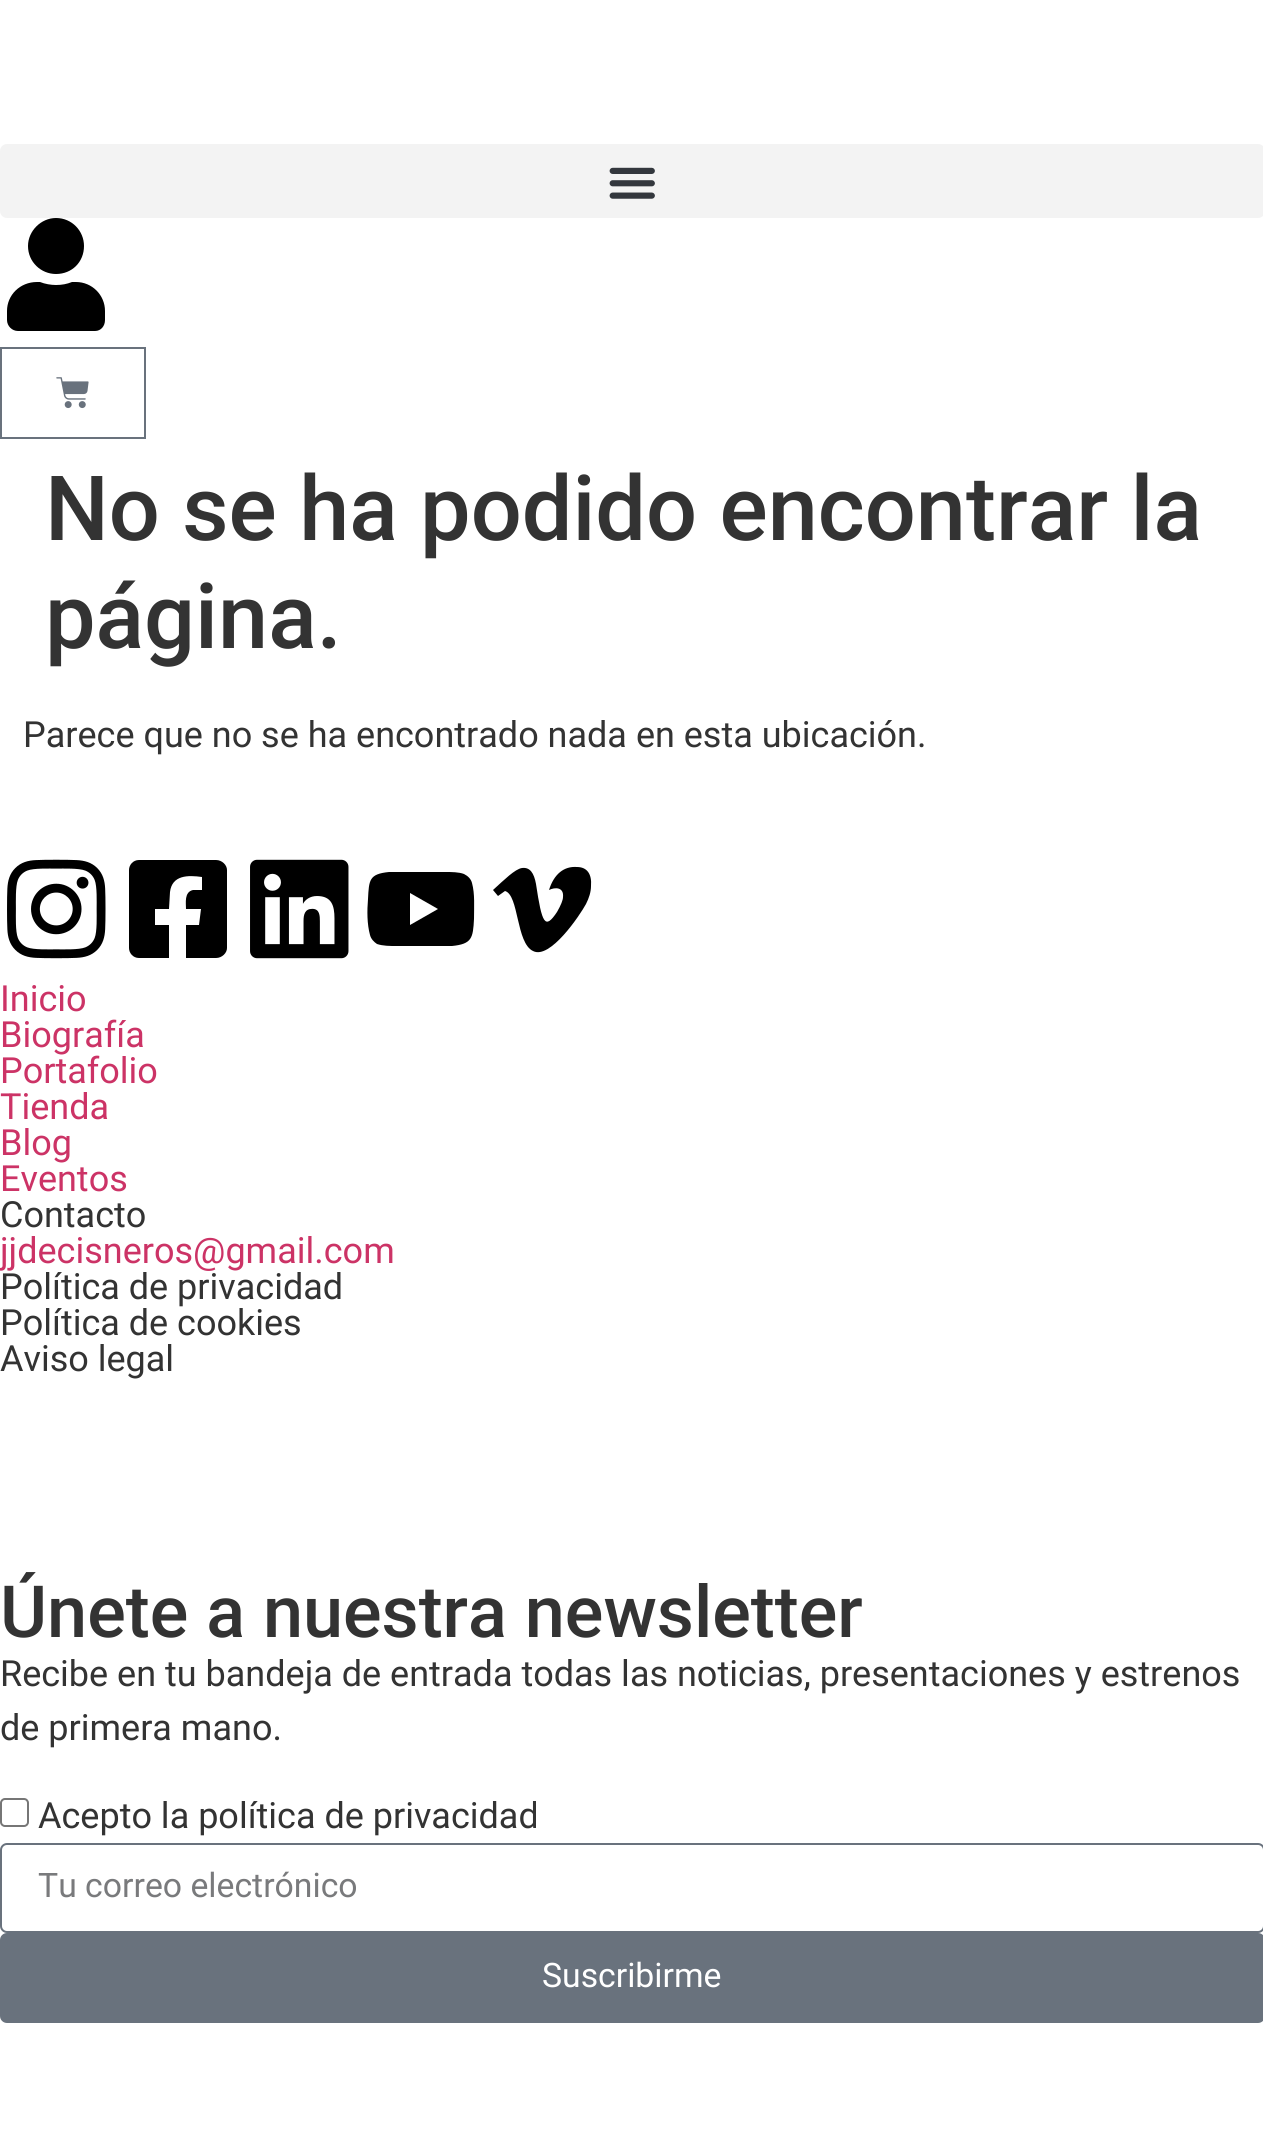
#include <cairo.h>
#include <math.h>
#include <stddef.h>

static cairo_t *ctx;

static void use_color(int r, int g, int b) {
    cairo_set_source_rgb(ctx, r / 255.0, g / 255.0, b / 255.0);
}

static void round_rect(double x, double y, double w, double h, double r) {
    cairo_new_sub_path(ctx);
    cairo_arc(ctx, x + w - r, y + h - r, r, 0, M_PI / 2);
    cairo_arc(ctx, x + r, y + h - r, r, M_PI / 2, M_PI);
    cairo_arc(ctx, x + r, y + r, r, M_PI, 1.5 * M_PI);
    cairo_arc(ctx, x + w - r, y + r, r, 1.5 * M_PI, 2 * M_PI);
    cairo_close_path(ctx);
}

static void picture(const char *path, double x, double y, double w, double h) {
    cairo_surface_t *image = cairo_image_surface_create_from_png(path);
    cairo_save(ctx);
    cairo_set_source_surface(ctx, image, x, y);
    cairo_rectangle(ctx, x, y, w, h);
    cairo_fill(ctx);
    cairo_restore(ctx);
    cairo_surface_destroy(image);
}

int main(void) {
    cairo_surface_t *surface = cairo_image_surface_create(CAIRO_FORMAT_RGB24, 1263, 2148);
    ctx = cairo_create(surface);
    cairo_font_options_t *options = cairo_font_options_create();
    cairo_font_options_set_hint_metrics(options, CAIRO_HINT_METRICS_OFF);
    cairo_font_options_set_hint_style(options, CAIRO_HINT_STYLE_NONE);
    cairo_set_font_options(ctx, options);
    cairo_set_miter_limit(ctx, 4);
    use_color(255, 255, 255);
    cairo_paint(ctx);
    use_color(243, 243, 243);
    round_rect(0, 144, 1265, 74, 7);
    cairo_fill(ctx);
    picture("img1.png", 609, 167, 46, 32);
    use_color(0, 0, 0);
    cairo_new_path(ctx);
    cairo_move_to(ctx, 56, 274);
    cairo_curve_to(ctx, 72, 274, 84, 262, 84, 246);
    cairo_curve_to(ctx, 84, 231, 72, 218, 56, 218);
    cairo_curve_to(ctx, 41, 218, 28, 231, 28, 246);
    cairo_curve_to(ctx, 28, 262, 41, 274, 56, 274);
    cairo_close_path(ctx);
    cairo_move_to(ctx, 76, 282);
    cairo_line_to(ctx, 72, 282);
    cairo_curve_to(ctx, 67, 284, 62, 285, 56, 285);
    cairo_curve_to(ctx, 51, 285, 45, 284, 40, 282);
    cairo_line_to(ctx, 37, 282);
    cairo_curve_to(ctx, 20, 282, 7, 295, 7, 311);
    cairo_line_to(ctx, 7, 320);
    cairo_curve_to(ctx, 7, 326, 12, 331, 18, 331);
    cairo_line_to(ctx, 95, 331);
    cairo_curve_to(ctx, 101, 331, 105, 326, 105, 320);
    cairo_line_to(ctx, 105, 311);
    cairo_curve_to(ctx, 105, 295, 92, 282, 76, 282);
    cairo_close_path(ctx);
    cairo_fill(ctx);
    cairo_rectangle(ctx, 1, 348, 144, 90);
    use_color(105, 114, 125);
    cairo_stroke(ctx);
    picture("img2.png", 56, 377, 33, 32);
    cairo_select_font_face(ctx, "Roboto Medium", CAIRO_FONT_SLANT_NORMAL, CAIRO_FONT_WEIGHT_NORMAL);
    cairo_set_font_size(ctx, 90);
    use_color(51, 51, 51);
    cairo_move_to(ctx, 45, 540);
    cairo_show_text(ctx, "No se ha podido encontrar la");
    cairo_move_to(ctx, 45, 648);
    cairo_show_text(ctx, "página.");
    cairo_select_font_face(ctx, "Roboto", CAIRO_FONT_SLANT_NORMAL, CAIRO_FONT_WEIGHT_NORMAL);
    cairo_set_font_size(ctx, 36);
    cairo_move_to(ctx, 23, 747);
    cairo_show_text(ctx, "Parece que no se ha encontrado nada en esta ubicación.");
    picture("img3.png", 7, 859, 99, 100);
    use_color(0, 0, 0);
    cairo_new_path(ctx);
    cairo_move_to(ctx, 216, 860);
    cairo_line_to(ctx, 139, 860);
    cairo_curve_to(ctx, 133, 860, 129, 865, 129, 870);
    cairo_line_to(ctx, 129, 948);
    cairo_curve_to(ctx, 129, 953, 133, 958, 139, 958);
    cairo_line_to(ctx, 169, 958);
    cairo_line_to(ctx, 169, 925);
    cairo_line_to(ctx, 155, 925);
    cairo_line_to(ctx, 155, 909);
    cairo_line_to(ctx, 169, 909);
    cairo_line_to(ctx, 170, 892);
    cairo_curve_to(ctx, 172, 875, 188, 875, 202, 877);
    cairo_line_to(ctx, 202, 890);
    cairo_line_to(ctx, 193, 890);
    cairo_curve_to(ctx, 184, 892, 186, 903, 186, 909);
    cairo_line_to(ctx, 201, 909);
    cairo_line_to(ctx, 199, 925);
    cairo_line_to(ctx, 186, 925);
    cairo_line_to(ctx, 186, 958);
    cairo_line_to(ctx, 216, 958);
    cairo_curve_to(ctx, 222, 958, 227, 953, 227, 948);
    cairo_line_to(ctx, 227, 870);
    cairo_curve_to(ctx, 227, 865, 222, 860, 216, 860);
    cairo_close_path(ctx);
    cairo_fill(ctx);
    picture("img4.png", 250, 859, 99, 100);
    cairo_new_path(ctx);
    cairo_move_to(ctx, 472, 883);
    cairo_curve_to(ctx, 471, 879, 468, 876, 464, 874);
    cairo_curve_to(ctx, 459, 872, 451, 872, 446, 872);
    cairo_line_to(ctx, 415, 872);
    cairo_line_to(ctx, 389, 872);
    cairo_curve_to(ctx, 369, 874, 369, 880, 368, 899);
    cairo_curve_to(ctx, 367, 911, 367, 924, 370, 935);
    cairo_curve_to(ctx, 371, 939, 374, 942, 377, 944);
    cairo_curve_to(ctx, 383, 946, 390, 946, 396, 946);
    cairo_line_to(ctx, 422, 946);
    cairo_line_to(ctx, 452, 946);
    cairo_curve_to(ctx, 472, 944, 473, 938, 474, 919);
    cairo_curve_to(ctx, 474, 907, 475, 894, 472, 883);
    cairo_close_path(ctx);
    cairo_move_to(ctx, 410, 925);
    cairo_line_to(ctx, 410, 893);
    cairo_line_to(ctx, 438, 909);
    cairo_close_path(ctx);
    cairo_fill(ctx);
    cairo_new_path(ctx);
    cairo_move_to(ctx, 591, 886);
    cairo_curve_to(ctx, 591, 892, 589, 898, 586, 904);
    cairo_curve_to(ctx, 580, 915, 550, 960, 533, 951);
    cairo_curve_to(ctx, 516, 943, 519, 895, 505, 891);
    cairo_line_to(ctx, 498, 896);
    cairo_line_to(ctx, 493, 890);
    cairo_curve_to(ctx, 504, 880, 515, 869, 522, 868);
    cairo_curve_to(ctx, 530, 867, 534, 873, 536, 884);
    cairo_curve_to(ctx, 542, 924, 545, 930, 557, 912);
    cairo_curve_to(ctx, 561, 905, 563, 900, 563, 897);
    cairo_curve_to(ctx, 564, 887, 555, 887, 549, 890);
    cairo_curve_to(ctx, 554, 874, 564, 866, 577, 867);
    cairo_curve_to(ctx, 587, 867, 592, 874, 591, 886);
    cairo_close_path(ctx);
    cairo_fill(ctx);
    use_color(204, 51, 102);
    cairo_move_to(ctx, 0, 1011);
    cairo_show_text(ctx, "Inicio");
    cairo_move_to(ctx, 0, 1047);
    cairo_show_text(ctx, "Biografía");
    cairo_move_to(ctx, 0, 1083);
    cairo_show_text(ctx, "Portafolio");
    cairo_move_to(ctx, 0, 1119);
    cairo_show_text(ctx, "Tienda");
    cairo_move_to(ctx, 0, 1155);
    cairo_show_text(ctx, "Blog");
    cairo_move_to(ctx, 0, 1191);
    cairo_show_text(ctx, "Eventos");
    use_color(51, 51, 51);
    cairo_move_to(ctx, 0, 1227);
    cairo_show_text(ctx, "Contacto");
    use_color(204, 51, 102);
    cairo_move_to(ctx, 0, 1263);
    cairo_show_text(ctx, "jjdecisneros@gmail.com");
    use_color(51, 51, 51);
    cairo_move_to(ctx, 0, 1299);
    cairo_show_text(ctx, "Política de privacidad");
    cairo_move_to(ctx, 0, 1335);
    cairo_show_text(ctx, "Política de cookies");
    cairo_move_to(ctx, 0, 1371);
    cairo_show_text(ctx, "Aviso legal");
    cairo_select_font_face(ctx, "Roboto Medium", CAIRO_FONT_SLANT_NORMAL, CAIRO_FONT_WEIGHT_NORMAL);
    cairo_set_font_size(ctx, 72);
    cairo_move_to(ctx, 0, 1637);
    cairo_show_text(ctx, "Únete a nuestra newsletter");
    cairo_select_font_face(ctx, "Roboto", CAIRO_FONT_SLANT_NORMAL, CAIRO_FONT_WEIGHT_NORMAL);
    cairo_set_font_size(ctx, 36);
    cairo_move_to(ctx, 0, 1686);
    cairo_show_text(ctx, "Recibe en tu bandeja de entrada todas las noticias, presentaciones y estrenos");
    cairo_move_to(ctx, 0, 1740);
    cairo_show_text(ctx, "de primera mano.");
    round_rect(1, 1799, 27, 27, 4);
    use_color(118, 118, 118);
    cairo_stroke(ctx);
    use_color(51, 51, 51);
    cairo_move_to(ctx, 38, 1828);
    cairo_show_text(ctx, "Acepto la política de privacidad");
    round_rect(1, 1844, 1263, 88, 6);
    use_color(105, 114, 125);
    cairo_stroke(ctx);
    cairo_set_font_size(ctx, 33.75);
    use_color(121, 122, 124);
    cairo_move_to(ctx, 38, 1897);
    cairo_show_text(ctx, "Tu correo electrónico");
    use_color(105, 114, 125);
    round_rect(0, 1933, 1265, 90, 7);
    cairo_fill(ctx);
    use_color(255, 255, 255);
    cairo_move_to(ctx, 542, 1987);
    cairo_show_text(ctx, "Suscribirme");
    cairo_surface_write_to_png(surface, "result.png");
    cairo_font_options_destroy(options);
    cairo_destroy(ctx);
    cairo_surface_destroy(surface);
    return 0;
}
